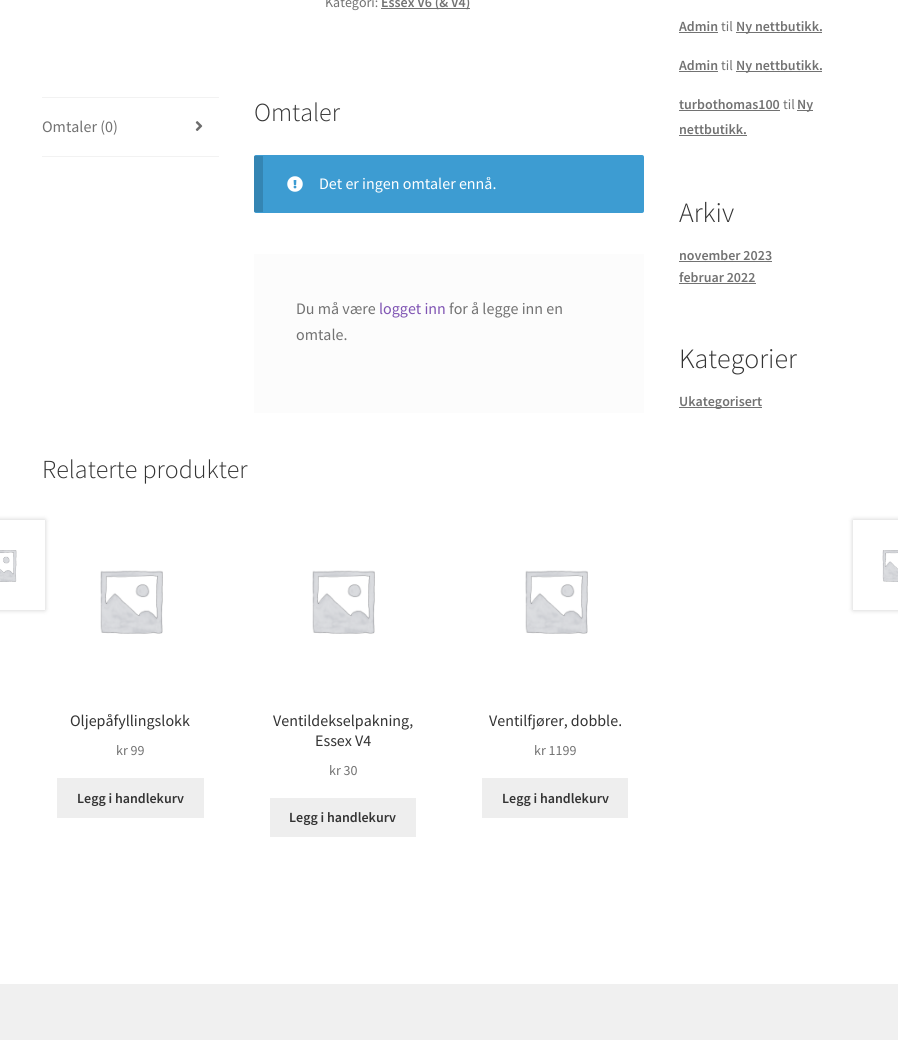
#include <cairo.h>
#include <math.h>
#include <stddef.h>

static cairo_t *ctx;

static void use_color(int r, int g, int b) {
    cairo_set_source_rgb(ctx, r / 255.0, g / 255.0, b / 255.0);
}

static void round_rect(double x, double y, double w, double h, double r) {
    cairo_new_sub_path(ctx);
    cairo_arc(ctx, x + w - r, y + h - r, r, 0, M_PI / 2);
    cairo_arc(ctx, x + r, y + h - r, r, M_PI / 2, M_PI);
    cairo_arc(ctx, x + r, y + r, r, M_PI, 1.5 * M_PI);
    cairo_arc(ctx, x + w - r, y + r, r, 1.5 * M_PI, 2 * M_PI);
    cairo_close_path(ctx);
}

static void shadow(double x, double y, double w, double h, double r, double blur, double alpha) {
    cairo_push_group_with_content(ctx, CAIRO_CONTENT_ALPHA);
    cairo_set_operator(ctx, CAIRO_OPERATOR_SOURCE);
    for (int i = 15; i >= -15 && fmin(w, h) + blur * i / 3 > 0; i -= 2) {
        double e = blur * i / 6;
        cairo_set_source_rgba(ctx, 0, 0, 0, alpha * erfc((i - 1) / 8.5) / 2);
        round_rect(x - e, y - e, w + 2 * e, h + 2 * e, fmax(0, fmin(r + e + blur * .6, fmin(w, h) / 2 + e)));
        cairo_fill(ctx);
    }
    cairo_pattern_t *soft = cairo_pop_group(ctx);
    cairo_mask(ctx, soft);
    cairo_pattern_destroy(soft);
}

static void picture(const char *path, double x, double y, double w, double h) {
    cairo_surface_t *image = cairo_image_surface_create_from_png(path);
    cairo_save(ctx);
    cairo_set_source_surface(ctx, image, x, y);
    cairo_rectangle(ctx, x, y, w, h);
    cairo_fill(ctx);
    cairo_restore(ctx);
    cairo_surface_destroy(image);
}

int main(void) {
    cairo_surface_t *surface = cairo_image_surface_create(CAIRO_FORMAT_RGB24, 898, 1040);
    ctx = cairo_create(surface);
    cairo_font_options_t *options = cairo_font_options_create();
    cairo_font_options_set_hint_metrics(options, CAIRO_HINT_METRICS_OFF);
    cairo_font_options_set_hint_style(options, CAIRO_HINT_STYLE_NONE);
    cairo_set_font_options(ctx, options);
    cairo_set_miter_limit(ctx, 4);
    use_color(255, 255, 255);
    cairo_paint(ctx);
    cairo_select_font_face(ctx, "Source Sans Pro", CAIRO_FONT_SLANT_NORMAL, CAIRO_FONT_WEIGHT_NORMAL);
    cairo_set_font_size(ctx, 14);
    use_color(114, 114, 114);
    cairo_move_to(ctx, 325, 7);
    cairo_show_text(ctx, "Kategori:");
    cairo_rectangle(ctx, 381, 8, 89, 1);
    cairo_fill(ctx);
    cairo_select_font_face(ctx, "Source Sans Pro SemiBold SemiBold", CAIRO_FONT_SLANT_NORMAL, CAIRO_FONT_WEIGHT_NORMAL);
    cairo_move_to(ctx, 381, 7);
    cairo_show_text(ctx, "Essex V6 (& V4)");
    use_color(242, 242, 242);
    cairo_rectangle(ctx, 42, 97, 177, 1);
    cairo_fill(ctx);
    cairo_rectangle(ctx, 42, 156, 177, 1);
    cairo_fill(ctx);
    cairo_select_font_face(ctx, "Source Sans Pro", CAIRO_FONT_SLANT_NORMAL, CAIRO_FONT_WEIGHT_NORMAL);
    cairo_set_font_size(ctx, 16);
    use_color(114, 114, 114);
    cairo_move_to(ctx, 42, 132);
    cairo_show_text(ctx, "Omtaler (0)");
    picture("img1.png", 195, 121, 8, 10);
    cairo_select_font_face(ctx, "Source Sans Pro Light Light", CAIRO_FONT_SLANT_NORMAL, CAIRO_FONT_WEIGHT_NORMAL);
    cairo_set_font_size(ctx, 26);
    use_color(51, 51, 51);
    cairo_move_to(ctx, 254, 121);
    cairo_show_text(ctx, "Omtaler");
    use_color(61, 156, 210);
    round_rect(254, 155, 390, 58, 2);
    cairo_fill(ctx);
    cairo_set_source_rgba(ctx, 0, 0, 0, 0.15);
    cairo_rectangle(ctx, 254, 156, 9, 56);
    cairo_fill(ctx);
    picture("img2.png", 287, 176, 16, 16);
    cairo_select_font_face(ctx, "Source Sans Pro", CAIRO_FONT_SLANT_NORMAL, CAIRO_FONT_WEIGHT_NORMAL);
    cairo_set_font_size(ctx, 16);
    use_color(255, 255, 255);
    cairo_move_to(ctx, 319, 189);
    cairo_show_text(ctx, "Det er ingen omtaler ennå.");
    use_color(252, 252, 252);
    cairo_rectangle(ctx, 254, 254, 390, 159);
    cairo_fill(ctx);
    use_color(114, 114, 114);
    cairo_move_to(ctx, 296, 314);
    cairo_show_text(ctx, "Du må være");
    use_color(127, 84, 179);
    cairo_move_to(ctx, 379, 314);
    cairo_show_text(ctx, "logget inn");
    use_color(114, 114, 114);
    cairo_move_to(ctx, 449, 314);
    cairo_show_text(ctx, "for å legge inn en");
    cairo_move_to(ctx, 296, 340);
    cairo_show_text(ctx, "omtale.");
    cairo_select_font_face(ctx, "Source Sans Pro Light Light", CAIRO_FONT_SLANT_NORMAL, CAIRO_FONT_WEIGHT_NORMAL);
    cairo_set_font_size(ctx, 26);
    use_color(51, 51, 51);
    cairo_move_to(ctx, 42, 478);
    cairo_show_text(ctx, "Relaterte produkter");
    picture("img3.png", 100, 570, 63, 64);
    cairo_select_font_face(ctx, "Source Sans Pro", CAIRO_FONT_SLANT_NORMAL, CAIRO_FONT_WEIGHT_NORMAL);
    cairo_set_font_size(ctx, 16);
    cairo_move_to(ctx, 70, 726);
    cairo_show_text(ctx, "Oljepåfyllingslokk");
    cairo_set_font_size(ctx, 14);
    use_color(114, 114, 114);
    cairo_move_to(ctx, 116, 755);
    cairo_show_text(ctx, "kr 99");
    use_color(238, 238, 238);
    cairo_rectangle(ctx, 57, 778, 147, 40);
    cairo_fill(ctx);
    cairo_select_font_face(ctx, "Source Sans Pro SemiBold SemiBold", CAIRO_FONT_SLANT_NORMAL, CAIRO_FONT_WEIGHT_NORMAL);
    use_color(51, 51, 51);
    cairo_move_to(ctx, 77, 803);
    cairo_show_text(ctx, "Legg i handlekurv");
    picture("img3.png", 312, 570, 63, 64);
    cairo_select_font_face(ctx, "Source Sans Pro", CAIRO_FONT_SLANT_NORMAL, CAIRO_FONT_WEIGHT_NORMAL);
    cairo_set_font_size(ctx, 16);
    cairo_move_to(ctx, 273, 726);
    cairo_show_text(ctx, "Ventildekselpakning,");
    cairo_move_to(ctx, 315, 746);
    cairo_show_text(ctx, "Essex V4");
    cairo_set_font_size(ctx, 14);
    use_color(114, 114, 114);
    cairo_move_to(ctx, 329, 775);
    cairo_show_text(ctx, "kr 30");
    use_color(238, 238, 238);
    cairo_rectangle(ctx, 270, 798, 146, 39);
    cairo_fill(ctx);
    cairo_select_font_face(ctx, "Source Sans Pro SemiBold SemiBold", CAIRO_FONT_SLANT_NORMAL, CAIRO_FONT_WEIGHT_NORMAL);
    use_color(51, 51, 51);
    cairo_move_to(ctx, 289, 822);
    cairo_show_text(ctx, "Legg i handlekurv");
    picture("img3.png", 525, 570, 63, 64);
    cairo_select_font_face(ctx, "Source Sans Pro", CAIRO_FONT_SLANT_NORMAL, CAIRO_FONT_WEIGHT_NORMAL);
    cairo_set_font_size(ctx, 16);
    cairo_move_to(ctx, 489, 726);
    cairo_show_text(ctx, "Ventilfjører, dobble.");
    cairo_set_font_size(ctx, 14);
    use_color(114, 114, 114);
    cairo_move_to(ctx, 534, 755);
    cairo_show_text(ctx, "kr 1199");
    use_color(238, 238, 238);
    cairo_rectangle(ctx, 482, 778, 146, 40);
    cairo_fill(ctx);
    cairo_select_font_face(ctx, "Source Sans Pro SemiBold SemiBold", CAIRO_FONT_SLANT_NORMAL, CAIRO_FONT_WEIGHT_NORMAL);
    use_color(51, 51, 51);
    cairo_move_to(ctx, 502, 803);
    cairo_show_text(ctx, "Legg i handlekurv");
    cairo_save(ctx);
    cairo_set_fill_rule(ctx, CAIRO_FILL_RULE_EVEN_ODD);
    cairo_new_path(ctx);
    cairo_move_to(ctx, 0, 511);
    cairo_line_to(ctx, 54, 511);
    cairo_line_to(ctx, 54, 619);
    cairo_line_to(ctx, 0, 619);
    cairo_close_path(ctx);
    cairo_move_to(ctx, -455, 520);
    cairo_line_to(ctx, 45, 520);
    cairo_line_to(ctx, 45, 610);
    cairo_line_to(ctx, -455, 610);
    cairo_close_path(ctx);
    cairo_clip(ctx);
    use_color(0, 0, 0);
    shadow(-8, 520, 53, 90, 0, 2.5, 0.2);
    cairo_restore(ctx);
    picture("img4.png", 0, 550, 17, 32);
    cairo_save(ctx);
    cairo_set_fill_rule(ctx, CAIRO_FILL_RULE_EVEN_ODD);
    cairo_new_path(ctx);
    cairo_move_to(ctx, 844, 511);
    cairo_line_to(ctx, 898, 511);
    cairo_line_to(ctx, 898, 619);
    cairo_line_to(ctx, 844, 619);
    cairo_close_path(ctx);
    cairo_move_to(ctx, 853, 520);
    cairo_line_to(ctx, 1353, 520);
    cairo_line_to(ctx, 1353, 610);
    cairo_line_to(ctx, 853, 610);
    cairo_close_path(ctx);
    cairo_clip(ctx);
    use_color(0, 0, 0);
    shadow(853, 520, 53, 90, 0, 2.5, 0.2);
    cairo_restore(ctx);
    picture("img5.png", 882, 550, 16, 32);
    use_color(114, 114, 114);
    cairo_move_to(ctx, 679, 31);
    cairo_show_text(ctx, "Admin");
    cairo_rectangle(ctx, 679, 32, 39, 1);
    cairo_fill(ctx);
    cairo_select_font_face(ctx, "Source Sans Pro", CAIRO_FONT_SLANT_NORMAL, CAIRO_FONT_WEIGHT_NORMAL);
    cairo_move_to(ctx, 721, 31);
    cairo_show_text(ctx, "til");
    cairo_rectangle(ctx, 736, 32, 86, 1);
    cairo_fill(ctx);
    cairo_select_font_face(ctx, "Source Sans Pro SemiBold SemiBold", CAIRO_FONT_SLANT_NORMAL, CAIRO_FONT_WEIGHT_NORMAL);
    cairo_move_to(ctx, 736, 31);
    cairo_show_text(ctx, "Ny nettbutikk.");
    cairo_move_to(ctx, 679, 70);
    cairo_show_text(ctx, "Admin");
    cairo_rectangle(ctx, 679, 71, 39, 1);
    cairo_fill(ctx);
    cairo_select_font_face(ctx, "Source Sans Pro", CAIRO_FONT_SLANT_NORMAL, CAIRO_FONT_WEIGHT_NORMAL);
    cairo_move_to(ctx, 721, 70);
    cairo_show_text(ctx, "til");
    cairo_rectangle(ctx, 736, 71, 86, 1);
    cairo_fill(ctx);
    cairo_select_font_face(ctx, "Source Sans Pro SemiBold SemiBold", CAIRO_FONT_SLANT_NORMAL, CAIRO_FONT_WEIGHT_NORMAL);
    cairo_move_to(ctx, 736, 70);
    cairo_show_text(ctx, "Ny nettbutikk.");
    cairo_move_to(ctx, 679, 109);
    cairo_show_text(ctx, "turbothomas100");
    cairo_rectangle(ctx, 679, 110, 101, 1);
    cairo_fill(ctx);
    cairo_select_font_face(ctx, "Source Sans Pro", CAIRO_FONT_SLANT_NORMAL, CAIRO_FONT_WEIGHT_NORMAL);
    cairo_move_to(ctx, 783, 109);
    cairo_show_text(ctx, "til");
    cairo_rectangle(ctx, 797, 110, 16, 1);
    cairo_fill(ctx);
    cairo_select_font_face(ctx, "Source Sans Pro SemiBold SemiBold", CAIRO_FONT_SLANT_NORMAL, CAIRO_FONT_WEIGHT_NORMAL);
    cairo_move_to(ctx, 797, 109);
    cairo_show_text(ctx, "Ny");
    cairo_move_to(ctx, 679, 134);
    cairo_show_text(ctx, "nettbutikk.");
    cairo_rectangle(ctx, 679, 135, 68, 1);
    cairo_fill(ctx);
    cairo_select_font_face(ctx, "Source Sans Pro Light Light", CAIRO_FONT_SLANT_NORMAL, CAIRO_FONT_WEIGHT_NORMAL);
    cairo_set_font_size(ctx, 28);
    use_color(51, 51, 51);
    cairo_move_to(ctx, 679, 222);
    cairo_show_text(ctx, "Arkiv");
    cairo_select_font_face(ctx, "Source Sans Pro SemiBold SemiBold", CAIRO_FONT_SLANT_NORMAL, CAIRO_FONT_WEIGHT_NORMAL);
    cairo_set_font_size(ctx, 14);
    use_color(114, 114, 114);
    cairo_move_to(ctx, 679, 260);
    cairo_show_text(ctx, "november 2023");
    cairo_rectangle(ctx, 679, 261, 93, 1);
    cairo_fill(ctx);
    cairo_move_to(ctx, 679, 282);
    cairo_show_text(ctx, "februar 2022");
    cairo_rectangle(ctx, 679, 283, 77, 1);
    cairo_fill(ctx);
    cairo_select_font_face(ctx, "Source Sans Pro Light Light", CAIRO_FONT_SLANT_NORMAL, CAIRO_FONT_WEIGHT_NORMAL);
    cairo_set_font_size(ctx, 28);
    use_color(51, 51, 51);
    cairo_move_to(ctx, 679, 368);
    cairo_show_text(ctx, "Kategorier");
    use_color(114, 114, 114);
    cairo_rectangle(ctx, 679, 407, 83, 1);
    cairo_fill(ctx);
    cairo_select_font_face(ctx, "Source Sans Pro SemiBold SemiBold", CAIRO_FONT_SLANT_NORMAL, CAIRO_FONT_WEIGHT_NORMAL);
    cairo_set_font_size(ctx, 14);
    cairo_move_to(ctx, 679, 406);
    cairo_show_text(ctx, "Ukategorisert");
    use_color(240, 240, 240);
    cairo_rectangle(ctx, 0, 984, 898, 56);
    cairo_fill(ctx);
    cairo_surface_write_to_png(surface, "result.png");
    cairo_font_options_destroy(options);
    cairo_destroy(ctx);
    cairo_surface_destroy(surface);
    return 0;
}
